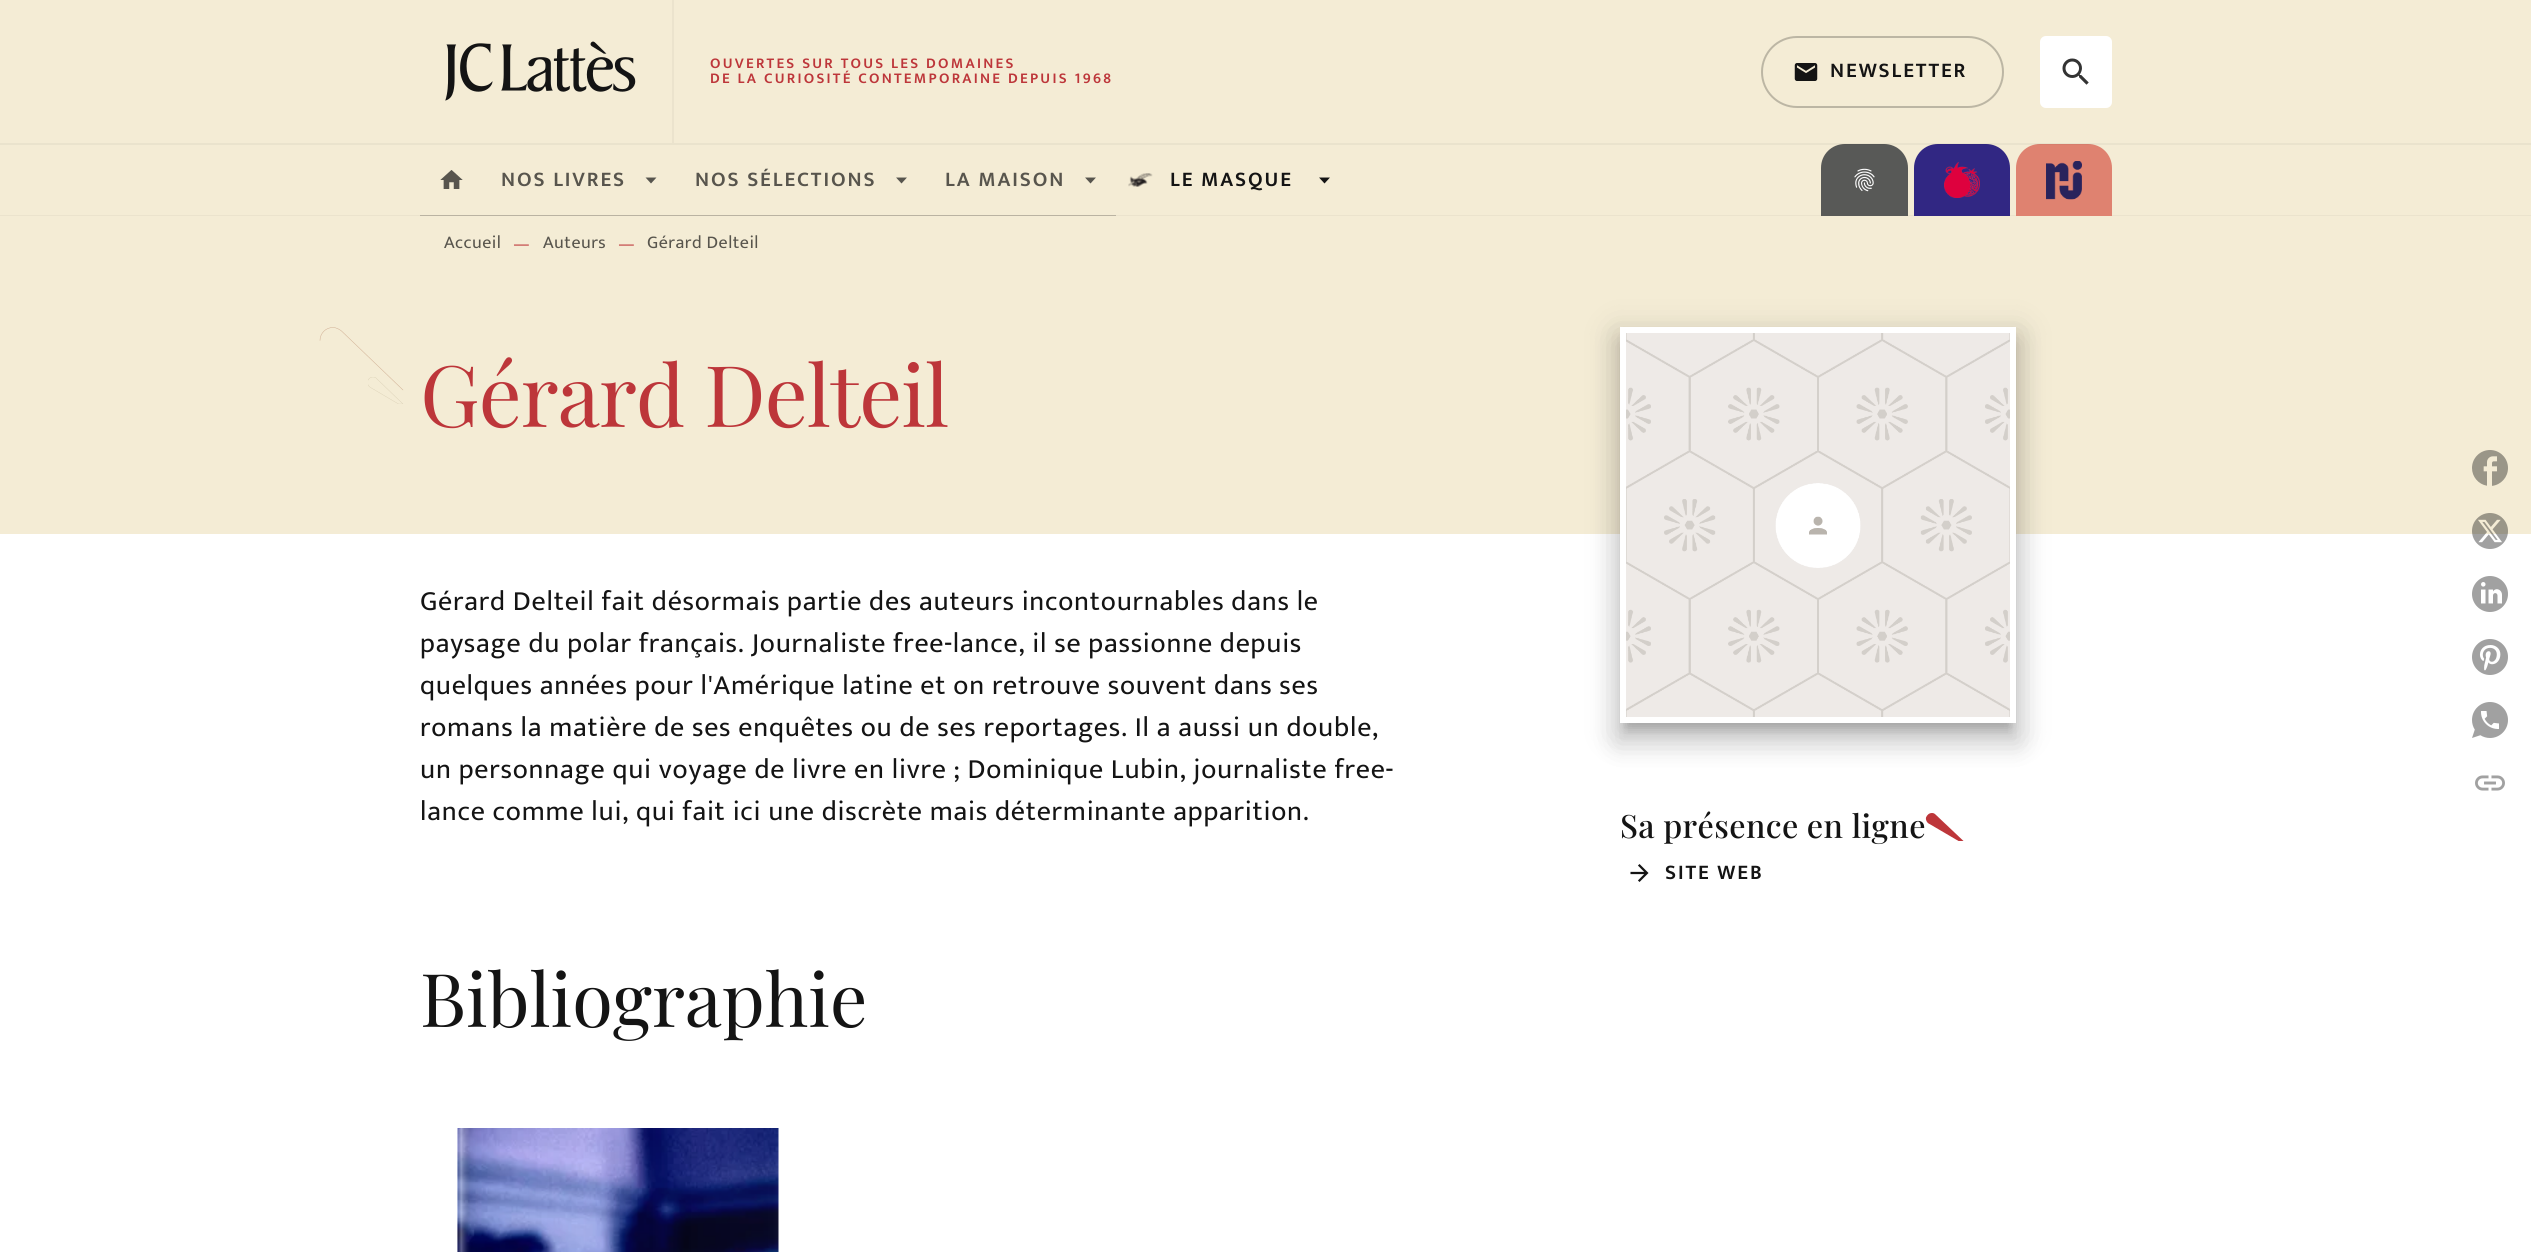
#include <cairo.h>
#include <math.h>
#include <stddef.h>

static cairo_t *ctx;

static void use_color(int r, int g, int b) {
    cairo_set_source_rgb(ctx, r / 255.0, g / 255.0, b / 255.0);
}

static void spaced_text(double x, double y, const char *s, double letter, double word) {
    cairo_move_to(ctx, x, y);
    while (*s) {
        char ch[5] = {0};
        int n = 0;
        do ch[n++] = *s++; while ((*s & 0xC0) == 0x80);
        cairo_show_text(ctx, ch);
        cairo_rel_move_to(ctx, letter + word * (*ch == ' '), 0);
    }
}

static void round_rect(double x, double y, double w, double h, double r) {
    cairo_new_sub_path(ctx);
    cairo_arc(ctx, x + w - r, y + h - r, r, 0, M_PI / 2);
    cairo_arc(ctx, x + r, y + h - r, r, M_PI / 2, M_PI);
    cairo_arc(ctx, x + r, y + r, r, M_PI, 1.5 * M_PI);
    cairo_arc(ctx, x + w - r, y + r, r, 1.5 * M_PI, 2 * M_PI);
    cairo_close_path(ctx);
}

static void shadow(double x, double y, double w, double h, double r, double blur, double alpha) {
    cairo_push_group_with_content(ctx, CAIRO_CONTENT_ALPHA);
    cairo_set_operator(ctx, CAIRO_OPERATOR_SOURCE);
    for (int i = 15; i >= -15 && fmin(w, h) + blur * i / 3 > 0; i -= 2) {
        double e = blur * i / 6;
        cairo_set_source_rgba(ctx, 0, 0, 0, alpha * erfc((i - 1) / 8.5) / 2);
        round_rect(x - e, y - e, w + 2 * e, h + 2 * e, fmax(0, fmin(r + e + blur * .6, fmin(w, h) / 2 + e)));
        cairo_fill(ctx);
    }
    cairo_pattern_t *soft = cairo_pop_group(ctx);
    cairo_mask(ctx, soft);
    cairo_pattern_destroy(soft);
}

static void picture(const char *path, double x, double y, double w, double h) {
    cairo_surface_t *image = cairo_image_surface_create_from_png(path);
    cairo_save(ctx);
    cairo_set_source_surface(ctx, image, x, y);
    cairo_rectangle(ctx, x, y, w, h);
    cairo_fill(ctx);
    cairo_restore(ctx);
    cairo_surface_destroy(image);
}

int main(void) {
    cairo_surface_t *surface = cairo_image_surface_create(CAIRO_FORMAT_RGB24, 2531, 1252);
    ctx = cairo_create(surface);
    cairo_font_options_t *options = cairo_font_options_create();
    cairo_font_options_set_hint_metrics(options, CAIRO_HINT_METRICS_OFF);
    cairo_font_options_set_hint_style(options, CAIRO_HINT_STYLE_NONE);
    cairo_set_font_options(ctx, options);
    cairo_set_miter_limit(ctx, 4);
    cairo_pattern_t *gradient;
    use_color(255, 255, 255);
    cairo_paint(ctx);
    use_color(244, 236, 213);
    cairo_rectangle(ctx, 0, 0, 2531, 215);
    cairo_fill(ctx);
    use_color(235, 227, 205);
    cairo_rectangle(ctx, 0, 215, 2531, 1);
    cairo_fill(ctx);
    use_color(88, 89, 87);
    cairo_new_path(ctx);
    cairo_move_to(ctx, 1845, 144);
    cairo_line_to(ctx, 1884, 144);
    cairo_curve_to(ctx, 1897.5, 144, 1908, 154.5, 1908, 168);
    cairo_line_to(ctx, 1908, 216);
    cairo_line_to(ctx, 1821, 216);
    cairo_line_to(ctx, 1821, 168);
    cairo_curve_to(ctx, 1821, 154.5, 1831.5, 144, 1845, 144);
    cairo_close_path(ctx);
    cairo_fill(ctx);
    use_color(49, 39, 131);
    cairo_new_path(ctx);
    cairo_move_to(ctx, 1938, 144);
    cairo_line_to(ctx, 1986, 144);
    cairo_curve_to(ctx, 1999.5, 144, 2010, 154.5, 2010, 168);
    cairo_line_to(ctx, 2010, 216);
    cairo_line_to(ctx, 1914, 216);
    cairo_line_to(ctx, 1914, 168);
    cairo_curve_to(ctx, 1914, 154.5, 1924.5, 144, 1938, 144);
    cairo_close_path(ctx);
    cairo_fill(ctx);
    use_color(223, 130, 112);
    cairo_new_path(ctx);
    cairo_move_to(ctx, 2040, 144);
    cairo_line_to(ctx, 2088, 144);
    cairo_curve_to(ctx, 2101.5, 144, 2112, 154.5, 2112, 168);
    cairo_line_to(ctx, 2112, 216);
    cairo_line_to(ctx, 2016, 216);
    cairo_line_to(ctx, 2016, 168);
    cairo_curve_to(ctx, 2016, 154.5, 2026.5, 144, 2040, 144);
    cairo_close_path(ctx);
    cairo_fill(ctx);
    cairo_set_source_rgba(ctx, 0.078, 0.078, 0.078, 0.04);
    cairo_rectangle(ctx, 0, 143, 2531, 2);
    cairo_fill(ctx);
    use_color(235, 227, 205);
    cairo_rectangle(ctx, 672, 0, 2, 143);
    cairo_fill(ctx);
    picture("img1.png", 445, 41, 191, 60);
    cairo_select_font_face(ctx, "Mukta SemiBold", CAIRO_FONT_SLANT_NORMAL, CAIRO_FONT_WEIGHT_NORMAL);
    cairo_set_font_size(ctx, 15);
    use_color(189, 54, 58);
    spaced_text(710, 68, "OUVERTES SUR TOUS LES DOMAINES", 2.25, 0);
    spaced_text(710, 83, "DE LA CURIOSITÉ CONTEMPORAINE DEPUIS 1968", 2.25, 0);
    round_rect(1762, 37, 241, 70, 35);
    use_color(188, 182, 164);
    cairo_stroke(ctx);
    picture("img2.png", 1794, 63, 24, 18);
    cairo_set_font_size(ctx, 21);
    use_color(20, 20, 20);
    spaced_text(1830, 77, "NEWSLETTER", 1.9, 0);
    use_color(255, 255, 255);
    round_rect(2040, 36, 72, 72, 6);
    cairo_fill(ctx);
    picture("img3.png", 2062, 58, 27, 27);
    use_color(88, 85, 77);
    spaced_text(695, 186, "NOS SÉLECTIONS", 1.9, 0);
    use_color(87, 85, 78);
    cairo_new_path(ctx);
    cairo_move_to(ctx, 896, 177.5);
    cairo_line_to(ctx, 907, 177.5);
    cairo_line_to(ctx, 901.5, 183.5);
    cairo_close_path(ctx);
    cairo_fill(ctx);
    picture("img4.png", 1854, 168, 21, 24);
    picture("img5.png", 1944, 162, 36, 36);
    picture("img6.png", 2046, 161, 36, 39);
    picture("img7.png", 440, 170, 23, 19);
    use_color(186, 179, 162);
    cairo_rectangle(ctx, 420, 215, 696, 1);
    cairo_fill(ctx);
    use_color(88, 85, 77);
    spaced_text(501, 186, "NOS LIVRES", 1.9, 0);
    use_color(87, 85, 78);
    cairo_new_path(ctx);
    cairo_move_to(ctx, 645.5, 177.5);
    cairo_line_to(ctx, 656.5, 177.5);
    cairo_line_to(ctx, 651, 183.5);
    cairo_close_path(ctx);
    cairo_fill(ctx);
    use_color(88, 85, 77);
    spaced_text(945, 186, "LA MAISON", 1.9, 0);
    use_color(87, 85, 78);
    cairo_new_path(ctx);
    cairo_move_to(ctx, 1085, 177.5);
    cairo_line_to(ctx, 1096, 177.5);
    cairo_line_to(ctx, 1090.5, 183.5);
    cairo_close_path(ctx);
    cairo_fill(ctx);
    picture("img8.png", 1128, 173, 25, 14);
    use_color(20, 20, 20);
    spaced_text(1170, 186, "LE MASQUE", 1.9, 0);
    cairo_new_path(ctx);
    cairo_move_to(ctx, 1319, 177.5);
    cairo_line_to(ctx, 1330, 177.5);
    cairo_line_to(ctx, 1324.5, 183.5);
    cairo_close_path(ctx);
    cairo_fill(ctx);
    use_color(244, 236, 213);
    cairo_rectangle(ctx, 0, 216, 2531, 318);
    cairo_fill(ctx);
    cairo_select_font_face(ctx, "Mukta", CAIRO_FONT_SLANT_NORMAL, CAIRO_FONT_WEIGHT_NORMAL);
    cairo_set_font_size(ctx, 18);
    use_color(88, 85, 77);
    spaced_text(444, 248, "Accueil", 0.5, 0);
    use_color(189, 54, 58);
    spaced_text(513, 249, "—", 0.8, 0);
    use_color(88, 85, 77);
    spaced_text(543, 248, "Auteurs", 0.5, 0);
    use_color(189, 54, 58);
    spaced_text(618, 249, "—", 0.8, 0);
    use_color(88, 85, 77);
    spaced_text(647, 248, "Gérard Delteil", 0.5, 0);
    cairo_new_path(ctx);
    cairo_move_to(ctx, 320, 340.5);
    cairo_curve_to(ctx, 320, 333.5, 325.5, 327.5, 333, 327.5);
    cairo_curve_to(ctx, 336, 327.5, 339, 329, 341.5, 331);
    cairo_line_to(ctx, 403, 390);
    use_color(208, 175, 148);
    cairo_set_line_width(ctx, 0.5);
    cairo_set_line_cap(ctx, CAIRO_LINE_CAP_ROUND);
    cairo_set_line_join(ctx, CAIRO_LINE_JOIN_ROUND);
    cairo_stroke(ctx);
    cairo_save(ctx);
    cairo_rectangle(ctx, 368, 377, 36, 27);
    cairo_clip(ctx);
    cairo_new_path(ctx);
    cairo_move_to(ctx, 373, 377);
    cairo_curve_to(ctx, 374.5, 377, 376, 377.5, 376.5, 378.5);
    cairo_line_to(ctx, 403, 404);
    cairo_line_to(ctx, 398.5, 404);
    cairo_line_to(ctx, 370.5, 387.5);
    cairo_curve_to(ctx, 369, 386.5, 367.5, 385, 367.5, 382.5);
    cairo_curve_to(ctx, 367.5, 379.5, 370, 377, 373, 377);
    cairo_close_path(ctx);
    use_color(209, 198, 171);
    cairo_set_line_width(ctx, 0.3);
    cairo_stroke(ctx);
    cairo_restore(ctx);
    cairo_select_font_face(ctx, "Playfair Display", CAIRO_FONT_SLANT_NORMAL, CAIRO_FONT_WEIGHT_NORMAL);
    cairo_set_font_size(ctx, 85);
    use_color(189, 54, 58);
    spaced_text(420, 427, "Gérard Delteil", -1, 0);
    cairo_select_font_face(ctx, "Mukta", CAIRO_FONT_SLANT_NORMAL, CAIRO_FONT_WEIGHT_NORMAL);
    cairo_set_font_size(ctx, 28);
    use_color(20, 20, 20);
    spaced_text(420, 610, "Gérard Delteil fait désormais partie des auteurs incontournables dans le", 0.8, 0);
    spaced_text(420, 652, "paysage du polar français. Journaliste free-lance, il se passionne depuis", 0.8, 0);
    spaced_text(420, 694, "quelques années pour l'Amérique latine et on retrouve souvent dans ses", 0.8, 0);
    spaced_text(420, 736, "romans la matière de ses enquêtes ou de ses reportages. Il a aussi un double,", 0.8, 0);
    spaced_text(420, 778, "un personnage qui voyage de livre en livre ; Dominique Lubin, journaliste free-", 0.8, 0);
    spaced_text(420, 820, "lance comme lui, qui fait ici une discrète mais déterminante apparition.", 0.8, 0);
    use_color(0, 0, 0);
    shadow(1614, 329, 408, 408, 0, 16.5, 0.12);
    shadow(1617, 342, 402, 402, 0, 13, 0.14);
    shadow(1626, 344, 384, 384, 0, 6, 0.2);
    cairo_rectangle(ctx, 1623, 330, 390, 390);
    use_color(255, 255, 255);
    cairo_set_line_width(ctx, 6);
    cairo_set_line_cap(ctx, CAIRO_LINE_CAP_BUTT);
    cairo_set_line_join(ctx, CAIRO_LINE_JOIN_MITER);
    cairo_stroke(ctx);
    picture("img9.png", 1626, 333, 384, 384);
    cairo_select_font_face(ctx, "Playfair Display Medium", CAIRO_FONT_SLANT_NORMAL, CAIRO_FONT_WEIGHT_NORMAL);
    cairo_set_font_size(ctx, 32.25);
    use_color(20, 20, 20);
    spaced_text(1620, 838, "Sa présence en ligne", 0.4, 0);
    use_color(189, 54, 58);
    cairo_set_fill_rule(ctx, CAIRO_FILL_RULE_EVEN_ODD);
    cairo_new_path(ctx);
    cairo_move_to(ctx, 1932, 813);
    cairo_curve_to(ctx, 1933.5, 813, 1934.5, 813.5, 1935.5, 814.5);
    cairo_line_to(ctx, 1963.5, 841);
    cairo_line_to(ctx, 1958.5, 841);
    cairo_line_to(ctx, 1929.5, 824);
    cairo_curve_to(ctx, 1927, 823, 1925.5, 820, 1926, 817.5);
    cairo_curve_to(ctx, 1927, 815, 1929, 813, 1932, 813);
    cairo_close_path(ctx);
    cairo_fill(ctx);
    picture("img10.png", 1630, 864, 19, 18);
    cairo_select_font_face(ctx, "Mukta SemiBold", CAIRO_FONT_SLANT_NORMAL, CAIRO_FONT_WEIGHT_NORMAL);
    cairo_set_font_size(ctx, 21);
    use_color(20, 20, 20);
    spaced_text(1665, 879, "SITE WEB", 1.9, 0);
    cairo_select_font_face(ctx, "Playfair Display", CAIRO_FONT_SLANT_NORMAL, CAIRO_FONT_WEIGHT_NORMAL);
    cairo_set_font_size(ctx, 74);
    cairo_move_to(ctx, 420, 1027);
    cairo_show_text(ctx, "Bibliographie");
    picture("img11.png", 457, 1128, 322, 124);
    gradient = cairo_pattern_create_linear(458, 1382, 779, 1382);
    cairo_pattern_add_color_stop_rgba(gradient, 0, 1, 1, 1, 0.3);
    cairo_pattern_add_color_stop_rgba(gradient, 0, 0.663, 0.663, 0.663, 0.18);
    cairo_pattern_add_color_stop_rgba(gradient, 0.01, 1, 1, 1, 0.36);
    cairo_pattern_add_color_stop_rgba(gradient, 0.04, 0.02, 0.02, 0.02, 0.06);
    cairo_pattern_add_color_stop_rgba(gradient, 0.07, 0.02, 0.02, 0.02, 0);
    cairo_pattern_add_color_stop_rgba(gradient, 0.07, 0.498, 0.498, 0.498, 0);
    cairo_pattern_add_color_stop_rgba(gradient, 0.98, 0.498, 0.498, 0.498, 0.06);
    cairo_pattern_add_color_stop_rgba(gradient, 1, 1, 1, 1, 0.06);
    cairo_set_source(ctx, gradient);
    cairo_pattern_destroy(gradient);
    round_rect(458, 1128, 321, 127, 3);
    cairo_fill(ctx);
    picture("img12.png", 2472, 450, 36, 36);
    picture("img13.png", 2472, 513, 36, 36);
    picture("img14.png", 2472, 576, 36, 36);
    picture("img15.png", 2472, 639, 36, 36);
    picture("img16.png", 2472, 702, 36, 36);
    picture("img17.png", 2475, 775, 30, 16);
    cairo_surface_write_to_png(surface, "result.png");
    cairo_font_options_destroy(options);
    cairo_destroy(ctx);
    cairo_surface_destroy(surface);
    return 0;
}
